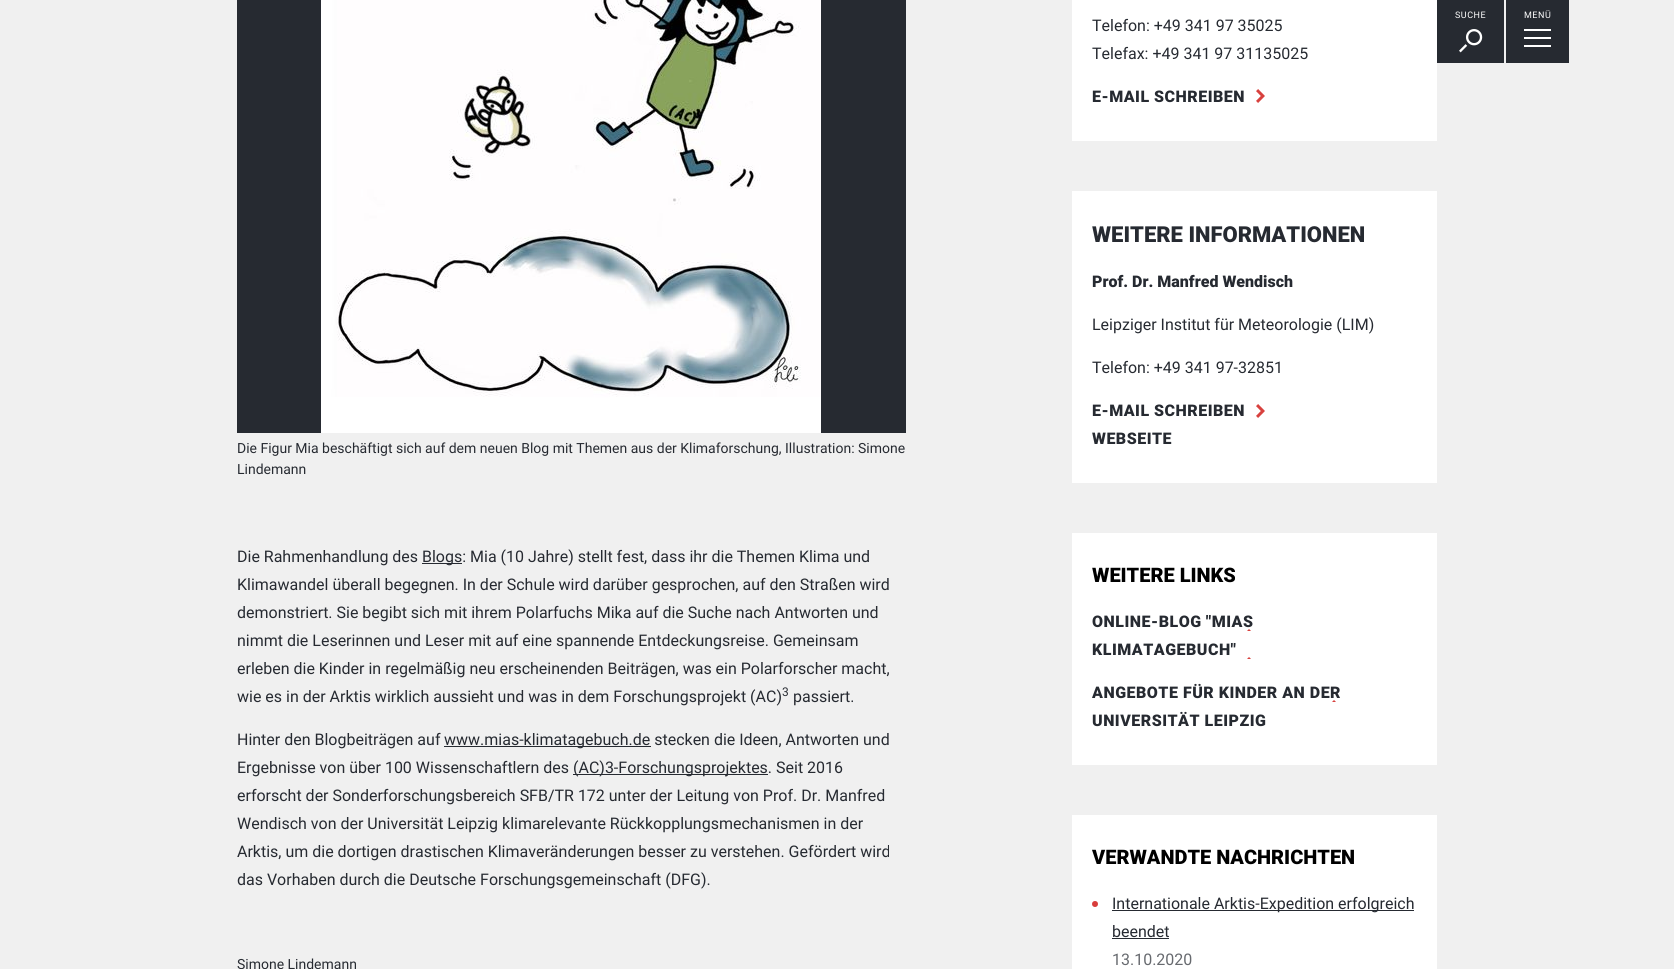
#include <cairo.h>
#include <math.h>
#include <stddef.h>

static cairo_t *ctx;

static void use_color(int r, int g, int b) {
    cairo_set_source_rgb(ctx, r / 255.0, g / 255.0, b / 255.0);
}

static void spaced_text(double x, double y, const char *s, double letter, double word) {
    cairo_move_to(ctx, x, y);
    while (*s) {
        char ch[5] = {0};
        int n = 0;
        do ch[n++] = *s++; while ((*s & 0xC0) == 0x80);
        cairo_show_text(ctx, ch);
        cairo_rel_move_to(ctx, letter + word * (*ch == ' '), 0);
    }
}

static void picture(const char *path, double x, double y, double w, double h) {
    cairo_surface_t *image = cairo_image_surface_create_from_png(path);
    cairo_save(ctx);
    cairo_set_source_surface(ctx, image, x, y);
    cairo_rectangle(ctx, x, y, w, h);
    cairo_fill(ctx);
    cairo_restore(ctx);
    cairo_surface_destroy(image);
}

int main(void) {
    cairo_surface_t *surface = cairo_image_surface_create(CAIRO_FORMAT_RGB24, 1674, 969);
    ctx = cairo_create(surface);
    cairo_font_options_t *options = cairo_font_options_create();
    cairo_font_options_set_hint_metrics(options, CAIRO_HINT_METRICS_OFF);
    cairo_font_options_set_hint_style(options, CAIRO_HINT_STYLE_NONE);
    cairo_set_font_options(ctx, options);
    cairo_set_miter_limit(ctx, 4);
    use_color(240, 240, 240);
    cairo_paint(ctx);
    use_color(38, 42, 49);
    cairo_rectangle(ctx, 1437, 0, 67, 63);
    cairo_fill(ctx);
    cairo_select_font_face(ctx, "Roboto", CAIRO_FONT_SLANT_NORMAL, CAIRO_FONT_WEIGHT_NORMAL);
    cairo_set_font_size(ctx, 9);
    use_color(255, 255, 255);
    spaced_text(1455, 18, "SUCHE", 0.5, 0);
    picture("img1.png", 1459, 29, 24, 24);
    use_color(38, 42, 49);
    cairo_rectangle(ctx, 1506, 0, 63, 63);
    cairo_fill(ctx);
    use_color(255, 255, 255);
    spaced_text(1524, 18, "MENÜ", 0.5, 0);
    cairo_rectangle(ctx, 1524, 37, 27, 2);
    cairo_fill(ctx);
    cairo_rectangle(ctx, 1524, 29, 27, 2);
    cairo_fill(ctx);
    cairo_rectangle(ctx, 1524, 45, 27, 2);
    cairo_fill(ctx);
    use_color(38, 42, 49);
    cairo_rectangle(ctx, 237, 0, 669, 433);
    cairo_fill(ctx);
    picture("img2.png", 321, 0, 500, 433);
    cairo_set_font_size(ctx, 14);
    cairo_move_to(ctx, 237, 453);
    cairo_show_text(ctx, "Die Figur Mia beschäftigt sich auf dem neuen Blog mit Themen aus der Klimaforschung, Illustration: Simone");
    cairo_move_to(ctx, 237, 474);
    cairo_show_text(ctx, "Lindemann");
    cairo_set_font_size(ctx, 16);
    cairo_move_to(ctx, 237, 562);
    cairo_show_text(ctx, "Die Rahmenhandlung des");
    cairo_rectangle(ctx, 422, 563, 40, 1);
    cairo_fill(ctx);
    cairo_move_to(ctx, 422, 562);
    cairo_show_text(ctx, "Blogs: Mia (10 Jahre) stellt fest, dass ihr die Themen Klima und");
    cairo_move_to(ctx, 237, 590);
    cairo_show_text(ctx, "Klimawandel überall begegnen. In der Schule wird darüber gesprochen, auf den Straßen wird");
    cairo_move_to(ctx, 237, 618);
    cairo_show_text(ctx, "demonstriert. Sie begibt sich mit ihrem Polarfuchs Mika auf die Suche nach Antworten und");
    cairo_move_to(ctx, 237, 646);
    cairo_show_text(ctx, "nimmt die Leserinnen und Leser mit auf eine spannende Entdeckungsreise. Gemeinsam");
    cairo_move_to(ctx, 237, 674);
    cairo_show_text(ctx, "erleben die Kinder in regelmäßig neu erscheinenden Beiträgen, was ein Polarforscher macht,");
    cairo_move_to(ctx, 237, 702);
    cairo_show_text(ctx, "wie es in der Arktis wirklich aussieht und was in dem Forschungsprojekt (AC)");
    cairo_set_font_size(ctx, 12);
    cairo_move_to(ctx, 782, 696);
    cairo_show_text(ctx, "3");
    cairo_set_font_size(ctx, 16);
    cairo_move_to(ctx, 793, 702);
    cairo_show_text(ctx, "passiert.");
    cairo_move_to(ctx, 237, 745);
    cairo_show_text(ctx, "Hinter den Blogbeiträgen auf");
    cairo_rectangle(ctx, 444, 746, 207, 1);
    cairo_fill(ctx);
    cairo_move_to(ctx, 444, 745);
    cairo_show_text(ctx, "www.mias-klimatagebuch.de stecken die Ideen, Antworten und");
    cairo_move_to(ctx, 237, 773);
    cairo_show_text(ctx, "Ergebnisse von über 100 Wissenschaftlern des");
    cairo_rectangle(ctx, 573, 774, 195, 1);
    cairo_fill(ctx);
    cairo_move_to(ctx, 573, 773);
    cairo_show_text(ctx, "(AC)3-Forschungsprojektes. Seit 2016");
    cairo_move_to(ctx, 237, 801);
    cairo_show_text(ctx, "erforscht der Sonderforschungsbereich SFB/TR 172 unter der Leitung von Prof. Dr. Manfred");
    cairo_move_to(ctx, 237, 829);
    cairo_show_text(ctx, "Wendisch von der Universität Leipzig klimarelevante Rückkopplungsmechanismen in der");
    cairo_move_to(ctx, 237, 857);
    cairo_show_text(ctx, "Arktis, um die dortigen drastischen Klimaveränderungen besser zu verstehen. Gefördert wird");
    cairo_move_to(ctx, 237, 885);
    cairo_show_text(ctx, "das Vorhaben durch die Deutsche Forschungsgemeinschaft (DFG).");
    cairo_set_font_size(ctx, 14);
    cairo_move_to(ctx, 237, 969);
    cairo_show_text(ctx, "Simone Lindemann");
    use_color(255, 255, 255);
    cairo_rectangle(ctx, 1072, 0, 365, 141);
    cairo_fill(ctx);
    cairo_set_font_size(ctx, 16);
    use_color(38, 42, 49);
    cairo_move_to(ctx, 1092, 31);
    cairo_show_text(ctx, "Telefon: +49 341 97 35025");
    cairo_move_to(ctx, 1092, 59);
    cairo_show_text(ctx, "Telefax: +49 341 97 31135025");
    cairo_select_font_face(ctx, "Roboto Black", CAIRO_FONT_SLANT_NORMAL, CAIRO_FONT_WEIGHT_NORMAL);
    spaced_text(1092, 102, "E-MAIL SCHREIBEN", 0.5, 0);
    picture("img3.png", 1256, 89, 9, 14);
    use_color(255, 255, 255);
    cairo_rectangle(ctx, 1072, 191, 365, 292);
    cairo_fill(ctx);
    cairo_set_font_size(ctx, 22);
    use_color(38, 42, 49);
    cairo_move_to(ctx, 1092, 242);
    cairo_show_text(ctx, "WEITERE INFORMATIONEN");
    cairo_set_font_size(ctx, 16);
    cairo_move_to(ctx, 1092, 287);
    cairo_show_text(ctx, "Prof. Dr. Manfred Wendisch");
    cairo_select_font_face(ctx, "Roboto", CAIRO_FONT_SLANT_NORMAL, CAIRO_FONT_WEIGHT_NORMAL);
    cairo_move_to(ctx, 1092, 330);
    cairo_show_text(ctx, "Leipziger Institut für Meteorologie (LIM)");
    cairo_move_to(ctx, 1092, 373);
    cairo_show_text(ctx, "Telefon: +49 341 97-32851");
    cairo_select_font_face(ctx, "Roboto Black", CAIRO_FONT_SLANT_NORMAL, CAIRO_FONT_WEIGHT_NORMAL);
    spaced_text(1092, 416, "E-MAIL SCHREIBEN", 0.5, 0);
    picture("img3.png", 1256, 404, 9, 14);
    spaced_text(1092, 444, "WEBSEITE", 0.5, 0);
    use_color(255, 255, 255);
    cairo_rectangle(ctx, 1072, 533, 365, 232);
    cairo_fill(ctx);
    cairo_set_font_size(ctx, 20);
    use_color(0, 0, 0);
    cairo_move_to(ctx, 1092, 582);
    cairo_show_text(ctx, "WEITERE LINKS");
    cairo_set_font_size(ctx, 16);
    use_color(38, 42, 49);
    spaced_text(1092, 627, "ONLINE-BLOG \"MIAS", 0.5, 0);
    cairo_save(ctx);
    cairo_rectangle(ctx, 1247, 629, 6, 2);
    cairo_clip(ctx);
    use_color(216, 65, 62);
    cairo_set_fill_rule(ctx, CAIRO_FILL_RULE_EVEN_ODD);
    cairo_new_path(ctx);
    cairo_move_to(ctx, 1249, 629);
    cairo_line_to(ctx, 1247, 631);
    cairo_line_to(ctx, 1252, 636);
    cairo_line_to(ctx, 1247, 641);
    cairo_line_to(ctx, 1249, 643);
    cairo_line_to(ctx, 1256, 636);
    cairo_close_path(ctx);
    cairo_fill(ctx);
    cairo_restore(ctx);
    spaced_text(1092, 655, "KLIMATAGEBUCH\"", 0.5, 0);
    cairo_save(ctx);
    cairo_rectangle(ctx, 1247, 657, 9, 2);
    cairo_clip(ctx);
    use_color(216, 65, 62);
    cairo_set_fill_rule(ctx, CAIRO_FILL_RULE_EVEN_ODD);
    cairo_new_path(ctx);
    cairo_move_to(ctx, 1249, 657);
    cairo_line_to(ctx, 1247, 659);
    cairo_line_to(ctx, 1252, 664);
    cairo_line_to(ctx, 1247, 669);
    cairo_line_to(ctx, 1249, 671);
    cairo_line_to(ctx, 1256, 664);
    cairo_close_path(ctx);
    cairo_fill(ctx);
    cairo_restore(ctx);
    spaced_text(1092, 698, "ANGEBOTE FÜR KINDER AN DER", 0.5, 0);
    cairo_save(ctx);
    cairo_rectangle(ctx, 1332, 700, 9, 2);
    cairo_clip(ctx);
    use_color(216, 65, 62);
    cairo_set_fill_rule(ctx, CAIRO_FILL_RULE_EVEN_ODD);
    cairo_new_path(ctx);
    cairo_move_to(ctx, 1334, 700);
    cairo_line_to(ctx, 1332, 702);
    cairo_line_to(ctx, 1337, 707);
    cairo_line_to(ctx, 1332, 712);
    cairo_line_to(ctx, 1334, 714);
    cairo_line_to(ctx, 1341, 707);
    cairo_close_path(ctx);
    cairo_fill(ctx);
    cairo_restore(ctx);
    spaced_text(1092, 726, "UNIVERSITÄT LEIPZIG", 0.5, 0);
    use_color(255, 255, 255);
    cairo_rectangle(ctx, 1072, 815, 365, 154);
    cairo_fill(ctx);
    cairo_set_font_size(ctx, 20);
    use_color(0, 0, 0);
    cairo_move_to(ctx, 1092, 864);
    cairo_show_text(ctx, "VERWANDTE NACHRICHTEN");
    use_color(216, 61, 59);
    cairo_new_path(ctx);
    cairo_arc(ctx, 1095, 904, 3, 0, 2 * M_PI);
    cairo_fill(ctx);
    use_color(38, 42, 49);
    cairo_rectangle(ctx, 1112, 910, 302, 1);
    cairo_fill(ctx);
    cairo_select_font_face(ctx, "Roboto", CAIRO_FONT_SLANT_NORMAL, CAIRO_FONT_WEIGHT_NORMAL);
    cairo_set_font_size(ctx, 16);
    cairo_move_to(ctx, 1112, 909);
    cairo_show_text(ctx, "Internationale Arktis-Expedition erfolgreich");
    cairo_move_to(ctx, 1112, 937);
    cairo_show_text(ctx, "beendet");
    cairo_rectangle(ctx, 1112, 938, 57, 1);
    cairo_fill(ctx);
    use_color(103, 106, 111);
    cairo_move_to(ctx, 1112, 965);
    cairo_show_text(ctx, "13.10.2020");
    cairo_surface_write_to_png(surface, "result.png");
    cairo_font_options_destroy(options);
    cairo_destroy(ctx);
    cairo_surface_destroy(surface);
    return 0;
}
